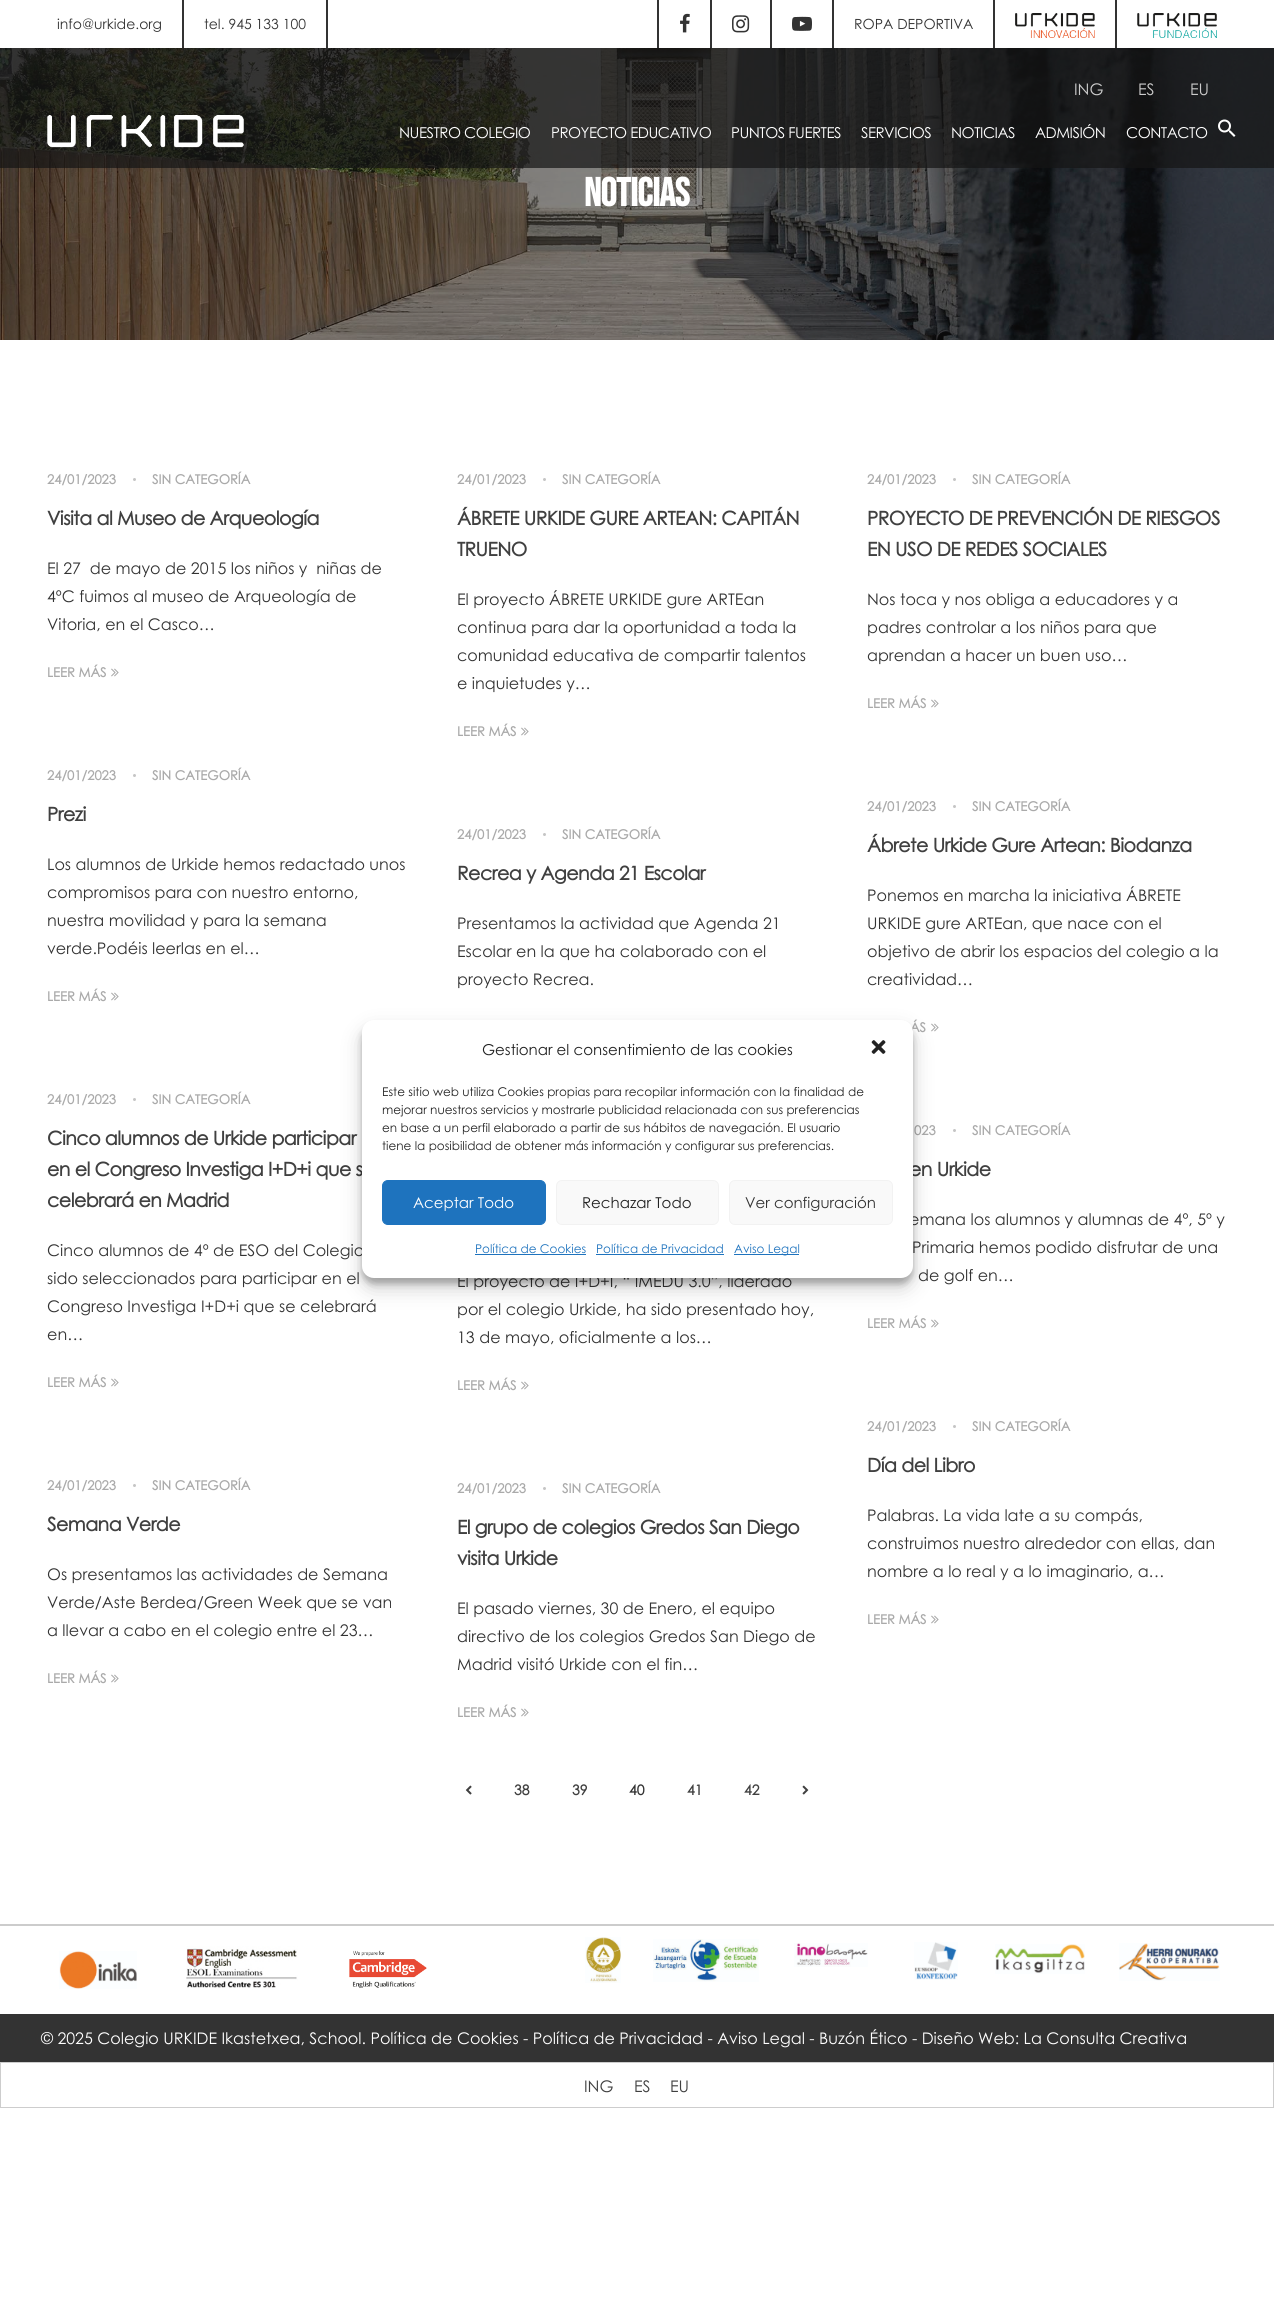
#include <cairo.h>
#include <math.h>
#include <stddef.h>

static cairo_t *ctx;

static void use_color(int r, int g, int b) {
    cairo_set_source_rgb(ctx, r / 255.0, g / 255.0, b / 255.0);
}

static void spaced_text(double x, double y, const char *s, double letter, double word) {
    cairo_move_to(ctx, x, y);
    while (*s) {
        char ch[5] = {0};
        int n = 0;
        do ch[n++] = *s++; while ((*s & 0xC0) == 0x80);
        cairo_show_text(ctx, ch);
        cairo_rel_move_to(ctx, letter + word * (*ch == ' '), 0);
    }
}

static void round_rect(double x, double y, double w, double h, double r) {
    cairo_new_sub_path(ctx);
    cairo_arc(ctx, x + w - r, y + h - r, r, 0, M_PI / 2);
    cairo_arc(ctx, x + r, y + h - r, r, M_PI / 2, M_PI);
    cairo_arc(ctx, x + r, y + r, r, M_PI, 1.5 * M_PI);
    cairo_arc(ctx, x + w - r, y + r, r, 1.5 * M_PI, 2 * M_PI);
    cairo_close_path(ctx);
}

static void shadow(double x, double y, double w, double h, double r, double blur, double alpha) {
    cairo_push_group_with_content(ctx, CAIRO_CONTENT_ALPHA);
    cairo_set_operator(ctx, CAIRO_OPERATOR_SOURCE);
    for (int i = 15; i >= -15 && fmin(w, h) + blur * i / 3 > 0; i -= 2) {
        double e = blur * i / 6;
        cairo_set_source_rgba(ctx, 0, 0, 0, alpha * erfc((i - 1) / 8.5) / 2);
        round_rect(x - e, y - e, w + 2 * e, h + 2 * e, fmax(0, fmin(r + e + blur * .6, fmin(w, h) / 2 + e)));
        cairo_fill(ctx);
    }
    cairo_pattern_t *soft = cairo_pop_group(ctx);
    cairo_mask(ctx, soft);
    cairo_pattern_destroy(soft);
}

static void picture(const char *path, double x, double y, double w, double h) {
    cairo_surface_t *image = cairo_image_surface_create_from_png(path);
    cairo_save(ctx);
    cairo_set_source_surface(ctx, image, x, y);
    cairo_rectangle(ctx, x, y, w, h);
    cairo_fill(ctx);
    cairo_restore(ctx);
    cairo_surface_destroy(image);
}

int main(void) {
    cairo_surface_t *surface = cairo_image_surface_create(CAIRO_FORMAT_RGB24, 1274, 2297);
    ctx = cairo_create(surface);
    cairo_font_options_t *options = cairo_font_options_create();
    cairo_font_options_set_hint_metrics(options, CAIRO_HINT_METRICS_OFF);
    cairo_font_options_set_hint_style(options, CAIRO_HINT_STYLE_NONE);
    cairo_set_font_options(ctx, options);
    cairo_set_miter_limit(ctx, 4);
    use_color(255, 255, 255);
    cairo_paint(ctx);
    use_color(51, 51, 51);
    cairo_rectangle(ctx, 182, 0, 2, 48);
    cairo_fill(ctx);
    cairo_select_font_face(ctx, "Century Gothic", CAIRO_FONT_SLANT_NORMAL, CAIRO_FONT_WEIGHT_NORMAL);
    cairo_set_font_size(ctx, 14);
    cairo_move_to(ctx, 57, 29);
    cairo_show_text(ctx, "info@urkide.org");
    cairo_rectangle(ctx, 326, 0, 2, 48);
    cairo_fill(ctx);
    cairo_move_to(ctx, 204, 29);
    cairo_show_text(ctx, "tel. 945 133 100");
    cairo_rectangle(ctx, 657, 0, 2, 48);
    cairo_fill(ctx);
    picture("img1.png", 680, 13, 10, 20);
    cairo_rectangle(ctx, 710, 0, 2, 48);
    cairo_fill(ctx);
    picture("img2.png", 732, 15, 18, 18);
    cairo_rectangle(ctx, 770, 0, 2, 48);
    cairo_fill(ctx);
    picture("img3.png", 792, 16, 20, 15);
    cairo_rectangle(ctx, 832, 0, 2, 48);
    cairo_fill(ctx);
    cairo_move_to(ctx, 854, 29);
    cairo_show_text(ctx, "ROPA DEPORTIVA");
    cairo_rectangle(ctx, 993, 0, 2, 48);
    cairo_fill(ctx);
    picture("img4.png", 1015, 13, 80, 25);
    cairo_rectangle(ctx, 1115, 0, 2, 48);
    cairo_fill(ctx);
    picture("img5.png", 1137, 13, 80, 25);
    picture("img8.png", 0, 48, 1274, 292);
    cairo_set_source_rgba(ctx, 0.082, 0.082, 0.082, 0.7);
    cairo_rectangle(ctx, 0, 48, 1274, 120);
    cairo_fill(ctx);
    cairo_set_font_size(ctx, 16);
    use_color(204, 204, 204);
    cairo_move_to(ctx, 1074, 95);
    cairo_show_text(ctx, "ING");
    cairo_move_to(ctx, 1138, 95);
    cairo_show_text(ctx, "ES");
    cairo_move_to(ctx, 1190, 95);
    cairo_show_text(ctx, "EU");
    picture("img6.png", 47, 115, 197, 33);
    cairo_set_font_size(ctx, 15);
    use_color(255, 255, 255);
    spaced_text(399, 138, "NUESTRO COLEGIO", -0.5, 0);
    spaced_text(551, 138, "PROYECTO EDUCATIVO", -0.5, 0);
    spaced_text(731, 138, "PUNTOS FUERTES", -0.5, 0);
    spaced_text(861, 138, "SERVICIOS", -0.5, 0);
    spaced_text(951, 138, "NOTICIAS", -0.5, 0);
    spaced_text(1035, 138, "ADMISIÓN", -0.5, 0);
    spaced_text(1126, 138, "CONTACTO", -0.5, 0);
    picture("img7.png", 1218, 119, 18, 18);
    cairo_select_font_face(ctx, "Bebas Neue", CAIRO_FONT_SLANT_NORMAL, CAIRO_FONT_WEIGHT_BOLD);
    cairo_set_font_size(ctx, 40);
    spaced_text(584, 206, "NOTICIAS", -0.5, 0);
    cairo_select_font_face(ctx, "Century Gothic", CAIRO_FONT_SLANT_NORMAL, CAIRO_FONT_WEIGHT_BOLD);
    cairo_set_font_size(ctx, 13);
    use_color(170, 170, 170);
    cairo_move_to(ctx, 47, 484);
    cairo_show_text(ctx, "24/01/2023");
    use_color(197, 197, 197);
    cairo_new_path(ctx);
    cairo_arc(ctx, 134.5, 479.5, 1.5, 0, 2 * M_PI);
    cairo_fill(ctx);
    use_color(170, 170, 170);
    cairo_move_to(ctx, 152, 484);
    cairo_show_text(ctx, "SIN CATEGORÍA");
    cairo_set_font_size(ctx, 19);
    use_color(64, 64, 64);
    spaced_text(47, 525, "Visita al Museo de Arqueología", -0.5, 0);
    cairo_select_font_face(ctx, "Century Gothic", CAIRO_FONT_SLANT_NORMAL, CAIRO_FONT_WEIGHT_NORMAL);
    cairo_set_font_size(ctx, 16);
    use_color(51, 51, 51);
    cairo_move_to(ctx, 47, 574);
    cairo_show_text(ctx, "El 27  de mayo de 2015 los niños y  niñas de");
    cairo_move_to(ctx, 47, 602);
    cairo_show_text(ctx, "4ºC fuimos al museo de Arqueología de");
    cairo_move_to(ctx, 47, 630);
    cairo_show_text(ctx, "Vitoria, en el Casco…");
    cairo_select_font_face(ctx, "Century Gothic", CAIRO_FONT_SLANT_NORMAL, CAIRO_FONT_WEIGHT_BOLD);
    cairo_set_font_size(ctx, 13);
    use_color(170, 170, 170);
    cairo_move_to(ctx, 47, 677);
    cairo_show_text(ctx, "LEER MÁS");
    picture("img9.png", 111, 668, 8, 9);
    cairo_move_to(ctx, 457, 484);
    cairo_show_text(ctx, "24/01/2023");
    use_color(197, 197, 197);
    cairo_new_path(ctx);
    cairo_arc(ctx, 544.5, 479.5, 1.5, 0, 2 * M_PI);
    cairo_fill(ctx);
    use_color(170, 170, 170);
    cairo_move_to(ctx, 562, 484);
    cairo_show_text(ctx, "SIN CATEGORÍA");
    cairo_set_font_size(ctx, 19);
    use_color(64, 64, 64);
    spaced_text(457, 525, "ÁBRETE URKIDE GURE ARTEAN: CAPITÁN", -0.5, 0);
    spaced_text(457, 556, "TRUENO", -0.5, 0);
    cairo_select_font_face(ctx, "Century Gothic", CAIRO_FONT_SLANT_NORMAL, CAIRO_FONT_WEIGHT_NORMAL);
    cairo_set_font_size(ctx, 16);
    use_color(51, 51, 51);
    cairo_move_to(ctx, 457, 605);
    cairo_show_text(ctx, "El proyecto ÁBRETE URKIDE gure ARTEan");
    cairo_move_to(ctx, 457, 633);
    cairo_show_text(ctx, "continua para dar la oportunidad a toda la");
    cairo_move_to(ctx, 457, 661);
    cairo_show_text(ctx, "comunidad educativa de compartir talentos");
    cairo_move_to(ctx, 457, 689);
    cairo_show_text(ctx, "e inquietudes y…");
    cairo_select_font_face(ctx, "Century Gothic", CAIRO_FONT_SLANT_NORMAL, CAIRO_FONT_WEIGHT_BOLD);
    cairo_set_font_size(ctx, 13);
    use_color(170, 170, 170);
    cairo_move_to(ctx, 457, 736);
    cairo_show_text(ctx, "LEER MÁS");
    picture("img9.png", 521, 727, 8, 9);
    cairo_move_to(ctx, 867, 484);
    cairo_show_text(ctx, "24/01/2023");
    use_color(197, 197, 197);
    cairo_new_path(ctx);
    cairo_arc(ctx, 954.5, 479.5, 1.5, 0, 2 * M_PI);
    cairo_fill(ctx);
    use_color(170, 170, 170);
    cairo_move_to(ctx, 972, 484);
    cairo_show_text(ctx, "SIN CATEGORÍA");
    cairo_set_font_size(ctx, 19);
    use_color(64, 64, 64);
    spaced_text(867, 525, "PROYECTO DE PREVENCIÓN DE RIESGOS", -0.5, 0);
    spaced_text(867, 556, "EN USO DE REDES SOCIALES", -0.5, 0);
    cairo_select_font_face(ctx, "Century Gothic", CAIRO_FONT_SLANT_NORMAL, CAIRO_FONT_WEIGHT_NORMAL);
    cairo_set_font_size(ctx, 16);
    use_color(51, 51, 51);
    cairo_move_to(ctx, 867, 605);
    cairo_show_text(ctx, "Nos toca y nos obliga a educadores y a");
    cairo_move_to(ctx, 867, 633);
    cairo_show_text(ctx, "padres controlar a los niños para que");
    cairo_move_to(ctx, 867, 661);
    cairo_show_text(ctx, "aprendan a hacer un buen uso…");
    cairo_select_font_face(ctx, "Century Gothic", CAIRO_FONT_SLANT_NORMAL, CAIRO_FONT_WEIGHT_BOLD);
    cairo_set_font_size(ctx, 13);
    use_color(170, 170, 170);
    cairo_move_to(ctx, 867, 708);
    cairo_show_text(ctx, "LEER MÁS");
    picture("img9.png", 931, 699, 8, 9);
    cairo_move_to(ctx, 47, 780);
    cairo_show_text(ctx, "24/01/2023");
    use_color(197, 197, 197);
    cairo_new_path(ctx);
    cairo_arc(ctx, 134.5, 775.5, 1.5, 0, 2 * M_PI);
    cairo_fill(ctx);
    use_color(170, 170, 170);
    cairo_move_to(ctx, 152, 780);
    cairo_show_text(ctx, "SIN CATEGORÍA");
    cairo_set_font_size(ctx, 19);
    use_color(64, 64, 64);
    spaced_text(47, 821, "Prezi", -0.5, 0);
    cairo_select_font_face(ctx, "Century Gothic", CAIRO_FONT_SLANT_NORMAL, CAIRO_FONT_WEIGHT_NORMAL);
    cairo_set_font_size(ctx, 16);
    use_color(51, 51, 51);
    cairo_move_to(ctx, 47, 870);
    cairo_show_text(ctx, "Los alumnos de Urkide hemos redactado unos");
    cairo_move_to(ctx, 47, 898);
    cairo_show_text(ctx, "compromisos para con nuestro entorno,");
    cairo_move_to(ctx, 47, 926);
    cairo_show_text(ctx, "nuestra movilidad y para la semana");
    cairo_move_to(ctx, 47, 954);
    cairo_show_text(ctx, "verde.Podéis leerlas en el…");
    cairo_select_font_face(ctx, "Century Gothic", CAIRO_FONT_SLANT_NORMAL, CAIRO_FONT_WEIGHT_BOLD);
    cairo_set_font_size(ctx, 13);
    use_color(170, 170, 170);
    cairo_move_to(ctx, 47, 1001);
    cairo_show_text(ctx, "LEER MÁS");
    picture("img9.png", 111, 992, 8, 9);
    cairo_move_to(ctx, 457, 839);
    cairo_show_text(ctx, "24/01/2023");
    use_color(197, 197, 197);
    cairo_new_path(ctx);
    cairo_arc(ctx, 544.5, 834.5, 1.5, 0, 2 * M_PI);
    cairo_fill(ctx);
    use_color(170, 170, 170);
    cairo_move_to(ctx, 562, 839);
    cairo_show_text(ctx, "SIN CATEGORÍA");
    cairo_set_font_size(ctx, 19);
    use_color(64, 64, 64);
    spaced_text(457, 880, "Recrea y Agenda 21 Escolar", -0.5, 0);
    cairo_select_font_face(ctx, "Century Gothic", CAIRO_FONT_SLANT_NORMAL, CAIRO_FONT_WEIGHT_NORMAL);
    cairo_set_font_size(ctx, 16);
    use_color(51, 51, 51);
    cairo_move_to(ctx, 457, 929);
    cairo_show_text(ctx, "Presentamos la actividad que Agenda 21");
    cairo_move_to(ctx, 457, 957);
    cairo_show_text(ctx, "Escolar en la que ha colaborado con el");
    cairo_move_to(ctx, 457, 985);
    cairo_show_text(ctx, "proyecto Recrea.");
    cairo_select_font_face(ctx, "Century Gothic", CAIRO_FONT_SLANT_NORMAL, CAIRO_FONT_WEIGHT_BOLD);
    cairo_set_font_size(ctx, 13);
    use_color(170, 170, 170);
    cairo_move_to(ctx, 867, 811);
    cairo_show_text(ctx, "24/01/2023");
    use_color(197, 197, 197);
    cairo_new_path(ctx);
    cairo_arc(ctx, 954.5, 806.5, 1.5, 0, 2 * M_PI);
    cairo_fill(ctx);
    use_color(170, 170, 170);
    cairo_move_to(ctx, 972, 811);
    cairo_show_text(ctx, "SIN CATEGORÍA");
    cairo_set_font_size(ctx, 19);
    use_color(64, 64, 64);
    spaced_text(867, 852, "Ábrete Urkide Gure Artean: Biodanza", -0.5, 0);
    cairo_select_font_face(ctx, "Century Gothic", CAIRO_FONT_SLANT_NORMAL, CAIRO_FONT_WEIGHT_NORMAL);
    cairo_set_font_size(ctx, 16);
    use_color(51, 51, 51);
    cairo_move_to(ctx, 867, 901);
    cairo_show_text(ctx, "Ponemos en marcha la iniciativa ÁBRETE");
    cairo_move_to(ctx, 867, 929);
    cairo_show_text(ctx, "URKIDE gure ARTEan, que nace con el");
    cairo_move_to(ctx, 867, 957);
    cairo_show_text(ctx, "objetivo de abrir los espacios del colegio a la");
    cairo_move_to(ctx, 867, 985);
    cairo_show_text(ctx, "creatividad…");
    cairo_select_font_face(ctx, "Century Gothic", CAIRO_FONT_SLANT_NORMAL, CAIRO_FONT_WEIGHT_BOLD);
    cairo_set_font_size(ctx, 13);
    use_color(170, 170, 170);
    cairo_move_to(ctx, 910, 1032);
    cairo_show_text(ctx, "ÁS");
    picture("img9.png", 931, 1023, 8, 9);
    cairo_move_to(ctx, 47, 1104);
    cairo_show_text(ctx, "24/01/2023");
    use_color(197, 197, 197);
    cairo_new_path(ctx);
    cairo_arc(ctx, 134.5, 1099.5, 1.5, 0, 2 * M_PI);
    cairo_fill(ctx);
    use_color(170, 170, 170);
    cairo_move_to(ctx, 152, 1104);
    cairo_show_text(ctx, "SIN CATEGORÍA");
    cairo_set_font_size(ctx, 19);
    use_color(64, 64, 64);
    spaced_text(47, 1145, "Cinco alumnos de Urkide participar", -0.5, 0);
    spaced_text(47, 1176, "en el Congreso Investiga I+D+i que s", -0.5, 0);
    spaced_text(47, 1207, "celebrará en Madrid", -0.5, 0);
    cairo_select_font_face(ctx, "Century Gothic", CAIRO_FONT_SLANT_NORMAL, CAIRO_FONT_WEIGHT_NORMAL);
    cairo_set_font_size(ctx, 16);
    use_color(51, 51, 51);
    cairo_move_to(ctx, 47, 1256);
    cairo_show_text(ctx, "Cinco alumnos de 4º de ESO del Colegio");
    cairo_move_to(ctx, 47, 1284);
    cairo_show_text(ctx, "sido seleccionados para participar en el");
    cairo_move_to(ctx, 47, 1312);
    cairo_show_text(ctx, "Congreso Investiga I+D+i que se celebrará");
    cairo_move_to(ctx, 47, 1340);
    cairo_show_text(ctx, "en…");
    cairo_select_font_face(ctx, "Century Gothic", CAIRO_FONT_SLANT_NORMAL, CAIRO_FONT_WEIGHT_BOLD);
    cairo_set_font_size(ctx, 13);
    use_color(170, 170, 170);
    cairo_move_to(ctx, 47, 1387);
    cairo_show_text(ctx, "LEER MÁS");
    picture("img9.png", 111, 1378, 8, 9);
    cairo_select_font_face(ctx, "Century Gothic", CAIRO_FONT_SLANT_NORMAL, CAIRO_FONT_WEIGHT_NORMAL);
    cairo_set_font_size(ctx, 16);
    use_color(51, 51, 51);
    cairo_move_to(ctx, 457, 1287);
    cairo_show_text(ctx, "El proyecto de I+D+I, “ IMEDU 3.0”, liderado");
    cairo_move_to(ctx, 457, 1315);
    cairo_show_text(ctx, "por el colegio Urkide, ha sido presentado hoy,");
    cairo_move_to(ctx, 457, 1343);
    cairo_show_text(ctx, "13 de mayo, oficialmente a los…");
    cairo_select_font_face(ctx, "Century Gothic", CAIRO_FONT_SLANT_NORMAL, CAIRO_FONT_WEIGHT_BOLD);
    cairo_set_font_size(ctx, 13);
    use_color(170, 170, 170);
    cairo_move_to(ctx, 457, 1390);
    cairo_show_text(ctx, "LEER MÁS");
    picture("img9.png", 521, 1381, 8, 9);
    cairo_move_to(ctx, 914, 1135);
    cairo_show_text(ctx, "023");
    use_color(197, 197, 197);
    cairo_new_path(ctx);
    cairo_arc(ctx, 954.5, 1130.5, 1.5, 0, 2 * M_PI);
    cairo_fill(ctx);
    use_color(170, 170, 170);
    cairo_move_to(ctx, 972, 1135);
    cairo_show_text(ctx, "SIN CATEGORÍA");
    cairo_set_font_size(ctx, 19);
    use_color(64, 64, 64);
    spaced_text(909, 1176, "en Urkide", -0.5, 0);
    cairo_select_font_face(ctx, "Century Gothic", CAIRO_FONT_SLANT_NORMAL, CAIRO_FONT_WEIGHT_NORMAL);
    cairo_set_font_size(ctx, 16);
    use_color(51, 51, 51);
    cairo_move_to(ctx, 909, 1225);
    cairo_show_text(ctx, "emana los alumnos y alumnas de 4º, 5º y");
    cairo_move_to(ctx, 912, 1253);
    cairo_show_text(ctx, "Primaria hemos podido disfrutar de una");
    cairo_move_to(ctx, 918, 1281);
    cairo_show_text(ctx, "de golf en…");
    cairo_select_font_face(ctx, "Century Gothic", CAIRO_FONT_SLANT_NORMAL, CAIRO_FONT_WEIGHT_BOLD);
    cairo_set_font_size(ctx, 13);
    use_color(170, 170, 170);
    cairo_move_to(ctx, 867, 1328);
    cairo_show_text(ctx, "LEER MÁS");
    picture("img9.png", 931, 1319, 8, 9);
    cairo_move_to(ctx, 47, 1490);
    cairo_show_text(ctx, "24/01/2023");
    use_color(197, 197, 197);
    cairo_new_path(ctx);
    cairo_arc(ctx, 134.5, 1485.5, 1.5, 0, 2 * M_PI);
    cairo_fill(ctx);
    use_color(170, 170, 170);
    cairo_move_to(ctx, 152, 1490);
    cairo_show_text(ctx, "SIN CATEGORÍA");
    cairo_set_font_size(ctx, 19);
    use_color(64, 64, 64);
    spaced_text(47, 1531, "Semana Verde", -0.5, 0);
    cairo_select_font_face(ctx, "Century Gothic", CAIRO_FONT_SLANT_NORMAL, CAIRO_FONT_WEIGHT_NORMAL);
    cairo_set_font_size(ctx, 16);
    use_color(51, 51, 51);
    cairo_move_to(ctx, 47, 1580);
    cairo_show_text(ctx, "Os presentamos las actividades de Semana");
    cairo_move_to(ctx, 47, 1608);
    cairo_show_text(ctx, "Verde/Aste Berdea/Green Week que se van");
    cairo_move_to(ctx, 47, 1636);
    cairo_show_text(ctx, "a llevar a cabo en el colegio entre el 23…");
    cairo_select_font_face(ctx, "Century Gothic", CAIRO_FONT_SLANT_NORMAL, CAIRO_FONT_WEIGHT_BOLD);
    cairo_set_font_size(ctx, 13);
    use_color(170, 170, 170);
    cairo_move_to(ctx, 47, 1683);
    cairo_show_text(ctx, "LEER MÁS");
    picture("img9.png", 111, 1674, 8, 9);
    cairo_move_to(ctx, 457, 1493);
    cairo_show_text(ctx, "24/01/2023");
    use_color(197, 197, 197);
    cairo_new_path(ctx);
    cairo_arc(ctx, 544.5, 1488.5, 1.5, 0, 2 * M_PI);
    cairo_fill(ctx);
    use_color(170, 170, 170);
    cairo_move_to(ctx, 562, 1493);
    cairo_show_text(ctx, "SIN CATEGORÍA");
    cairo_set_font_size(ctx, 19);
    use_color(64, 64, 64);
    spaced_text(457, 1534, "El grupo de colegios Gredos San Diego", -0.5, 0);
    spaced_text(457, 1565, "visita Urkide", -0.5, 0);
    cairo_select_font_face(ctx, "Century Gothic", CAIRO_FONT_SLANT_NORMAL, CAIRO_FONT_WEIGHT_NORMAL);
    cairo_set_font_size(ctx, 16);
    use_color(51, 51, 51);
    cairo_move_to(ctx, 457, 1614);
    cairo_show_text(ctx, "El pasado viernes, 30 de Enero, el equipo");
    cairo_move_to(ctx, 457, 1642);
    cairo_show_text(ctx, "directivo de los colegios Gredos San Diego de");
    cairo_move_to(ctx, 457, 1670);
    cairo_show_text(ctx, "Madrid visitó Urkide con el fin…");
    cairo_select_font_face(ctx, "Century Gothic", CAIRO_FONT_SLANT_NORMAL, CAIRO_FONT_WEIGHT_BOLD);
    cairo_set_font_size(ctx, 13);
    use_color(170, 170, 170);
    cairo_move_to(ctx, 457, 1717);
    cairo_show_text(ctx, "LEER MÁS");
    picture("img9.png", 521, 1708, 8, 9);
    cairo_move_to(ctx, 867, 1431);
    cairo_show_text(ctx, "24/01/2023");
    use_color(197, 197, 197);
    cairo_new_path(ctx);
    cairo_arc(ctx, 954.5, 1426.5, 1.5, 0, 2 * M_PI);
    cairo_fill(ctx);
    use_color(170, 170, 170);
    cairo_move_to(ctx, 972, 1431);
    cairo_show_text(ctx, "SIN CATEGORÍA");
    cairo_set_font_size(ctx, 19);
    use_color(64, 64, 64);
    spaced_text(867, 1472, "Día del Libro", -0.5, 0);
    cairo_select_font_face(ctx, "Century Gothic", CAIRO_FONT_SLANT_NORMAL, CAIRO_FONT_WEIGHT_NORMAL);
    cairo_set_font_size(ctx, 16);
    use_color(51, 51, 51);
    cairo_move_to(ctx, 867, 1521);
    cairo_show_text(ctx, "Palabras. La vida late a su compás,");
    cairo_move_to(ctx, 867, 1549);
    cairo_show_text(ctx, "construimos nuestro alrededor con ellas, dan");
    cairo_move_to(ctx, 867, 1577);
    cairo_show_text(ctx, "nombre a lo real y a lo imaginario, a…");
    cairo_select_font_face(ctx, "Century Gothic", CAIRO_FONT_SLANT_NORMAL, CAIRO_FONT_WEIGHT_BOLD);
    cairo_set_font_size(ctx, 13);
    use_color(170, 170, 170);
    cairo_move_to(ctx, 867, 1624);
    cairo_show_text(ctx, "LEER MÁS");
    picture("img9.png", 931, 1615, 8, 9);
    picture("img10.png", 465, 1785, 7, 10);
    cairo_set_font_size(ctx, 14);
    use_color(64, 64, 64);
    cairo_move_to(ctx, 514, 1795);
    cairo_show_text(ctx, "38");
    cairo_move_to(ctx, 572, 1795);
    cairo_show_text(ctx, "39");
    use_color(51, 51, 51);
    cairo_move_to(ctx, 629, 1795);
    cairo_show_text(ctx, "40");
    use_color(64, 64, 64);
    cairo_move_to(ctx, 687, 1795);
    cairo_show_text(ctx, "41");
    cairo_move_to(ctx, 744, 1795);
    cairo_show_text(ctx, "42");
    picture("img11.png", 802, 1785, 7, 10);
    use_color(204, 204, 204);
    cairo_rectangle(ctx, 0, 1924, 1274, 2);
    cairo_fill(ctx);
    picture("img12.png", 59, 1951, 78, 38);
    picture("img13.png", 186, 1946, 112, 42);
    picture("img14.png", 349, 1950, 78, 38);
    picture("img15.png", 585, 1937, 36, 46);
    picture("img16.png", 653, 1939, 106, 43);
    picture("img17.png", 794, 1943, 74, 24);
    picture("img18.png", 914, 1942, 44, 38);
    picture("img19.png", 995, 1944, 90, 30);
    picture("img20.png", 1119, 1943, 101, 38);
    use_color(51, 51, 51);
    cairo_rectangle(ctx, 0, 2014, 1274, 48);
    cairo_fill(ctx);
    cairo_select_font_face(ctx, "Century Gothic", CAIRO_FONT_SLANT_NORMAL, CAIRO_FONT_WEIGHT_NORMAL);
    cairo_set_font_size(ctx, 16);
    use_color(255, 255, 255);
    cairo_move_to(ctx, 41, 2044);
    cairo_show_text(ctx, "© 2025 Colegio URKIDE Ikastetxea, School. Política de Cookies - Política de Privacidad - Aviso Legal - Buzón Ético - Diseño Web: La Consulta Creativa");
    use_color(0, 0, 0);
    shadow(362, 1026, 551, 258, 12, 3, 0.23);
    shadow(362, 1030, 551, 258, 12, 10, 0.19);
    use_color(255, 255, 255);
    round_rect(362, 1020, 551, 258, 12);
    cairo_fill(ctx);
    cairo_set_font_size(ctx, 15);
    use_color(34, 34, 34);
    cairo_move_to(ctx, 482, 1055);
    cairo_show_text(ctx, "Gestionar el consentimiento de las cookies");
    picture("img21.png", 871, 1040, 15, 14);
    cairo_set_font_size(ctx, 12);
    cairo_move_to(ctx, 382, 1096);
    cairo_show_text(ctx, "Este sitio web utiliza Cookies propias para recopilar información con la finalidad de");
    cairo_move_to(ctx, 382, 1114);
    cairo_show_text(ctx, "mejorar nuestros servicios y mostrarle publicidad relacionada con sus preferencias");
    cairo_move_to(ctx, 382, 1132);
    cairo_show_text(ctx, "en base a un perfil elaborado a partir de sus hábitos de navegación. El usuario");
    cairo_move_to(ctx, 382, 1150);
    cairo_show_text(ctx, "tiene la posibilidad de obtener más información y configurar sus preferencias.");
    use_color(30, 115, 190);
    round_rect(382.5, 1180.5, 163, 44, 5.5);
    cairo_fill_preserve(ctx);
    cairo_set_line_width(ctx, 1);
    cairo_stroke(ctx);
    cairo_set_font_size(ctx, 15);
    use_color(255, 255, 255);
    cairo_move_to(ctx, 413, 1208);
    cairo_show_text(ctx, "Aceptar Todo");
    use_color(249, 249, 249);
    round_rect(556.5, 1180.5, 162, 44, 5.5);
    cairo_fill_preserve(ctx);
    use_color(242, 242, 242);
    cairo_stroke(ctx);
    use_color(34, 34, 34);
    cairo_move_to(ctx, 582, 1208);
    cairo_show_text(ctx, "Rechazar Todo");
    use_color(249, 249, 249);
    round_rect(729.5, 1180.5, 163, 44, 5.5);
    cairo_fill_preserve(ctx);
    use_color(242, 242, 242);
    cairo_stroke(ctx);
    use_color(51, 51, 51);
    cairo_move_to(ctx, 745, 1208);
    cairo_show_text(ctx, "Ver configuración");
    cairo_set_font_size(ctx, 12);
    use_color(30, 115, 190);
    cairo_move_to(ctx, 475, 1253);
    cairo_show_text(ctx, "Política de Cookies");
    cairo_rectangle(ctx, 475, 1254, 111, 1);
    cairo_fill(ctx);
    cairo_move_to(ctx, 596, 1253);
    cairo_show_text(ctx, "Política de Privacidad");
    cairo_rectangle(ctx, 596, 1254, 128, 1);
    cairo_fill(ctx);
    cairo_rectangle(ctx, 734, 1254, 65, 1);
    cairo_fill(ctx);
    cairo_move_to(ctx, 734, 1253);
    cairo_show_text(ctx, "Aviso Legal");
    cairo_rectangle(ctx, 0.5, 2062.5, 1273, 45);
    use_color(205, 205, 205);
    cairo_stroke(ctx);
    cairo_set_font_size(ctx, 16);
    use_color(64, 64, 64);
    cairo_move_to(ctx, 584, 2092);
    cairo_show_text(ctx, "ING");
    cairo_move_to(ctx, 634, 2092);
    cairo_show_text(ctx, "ES");
    cairo_move_to(ctx, 670, 2092);
    cairo_show_text(ctx, "EU");
    cairo_surface_write_to_png(surface, "result.png");
    cairo_font_options_destroy(options);
    cairo_destroy(ctx);
    cairo_surface_destroy(surface);
    return 0;
}
